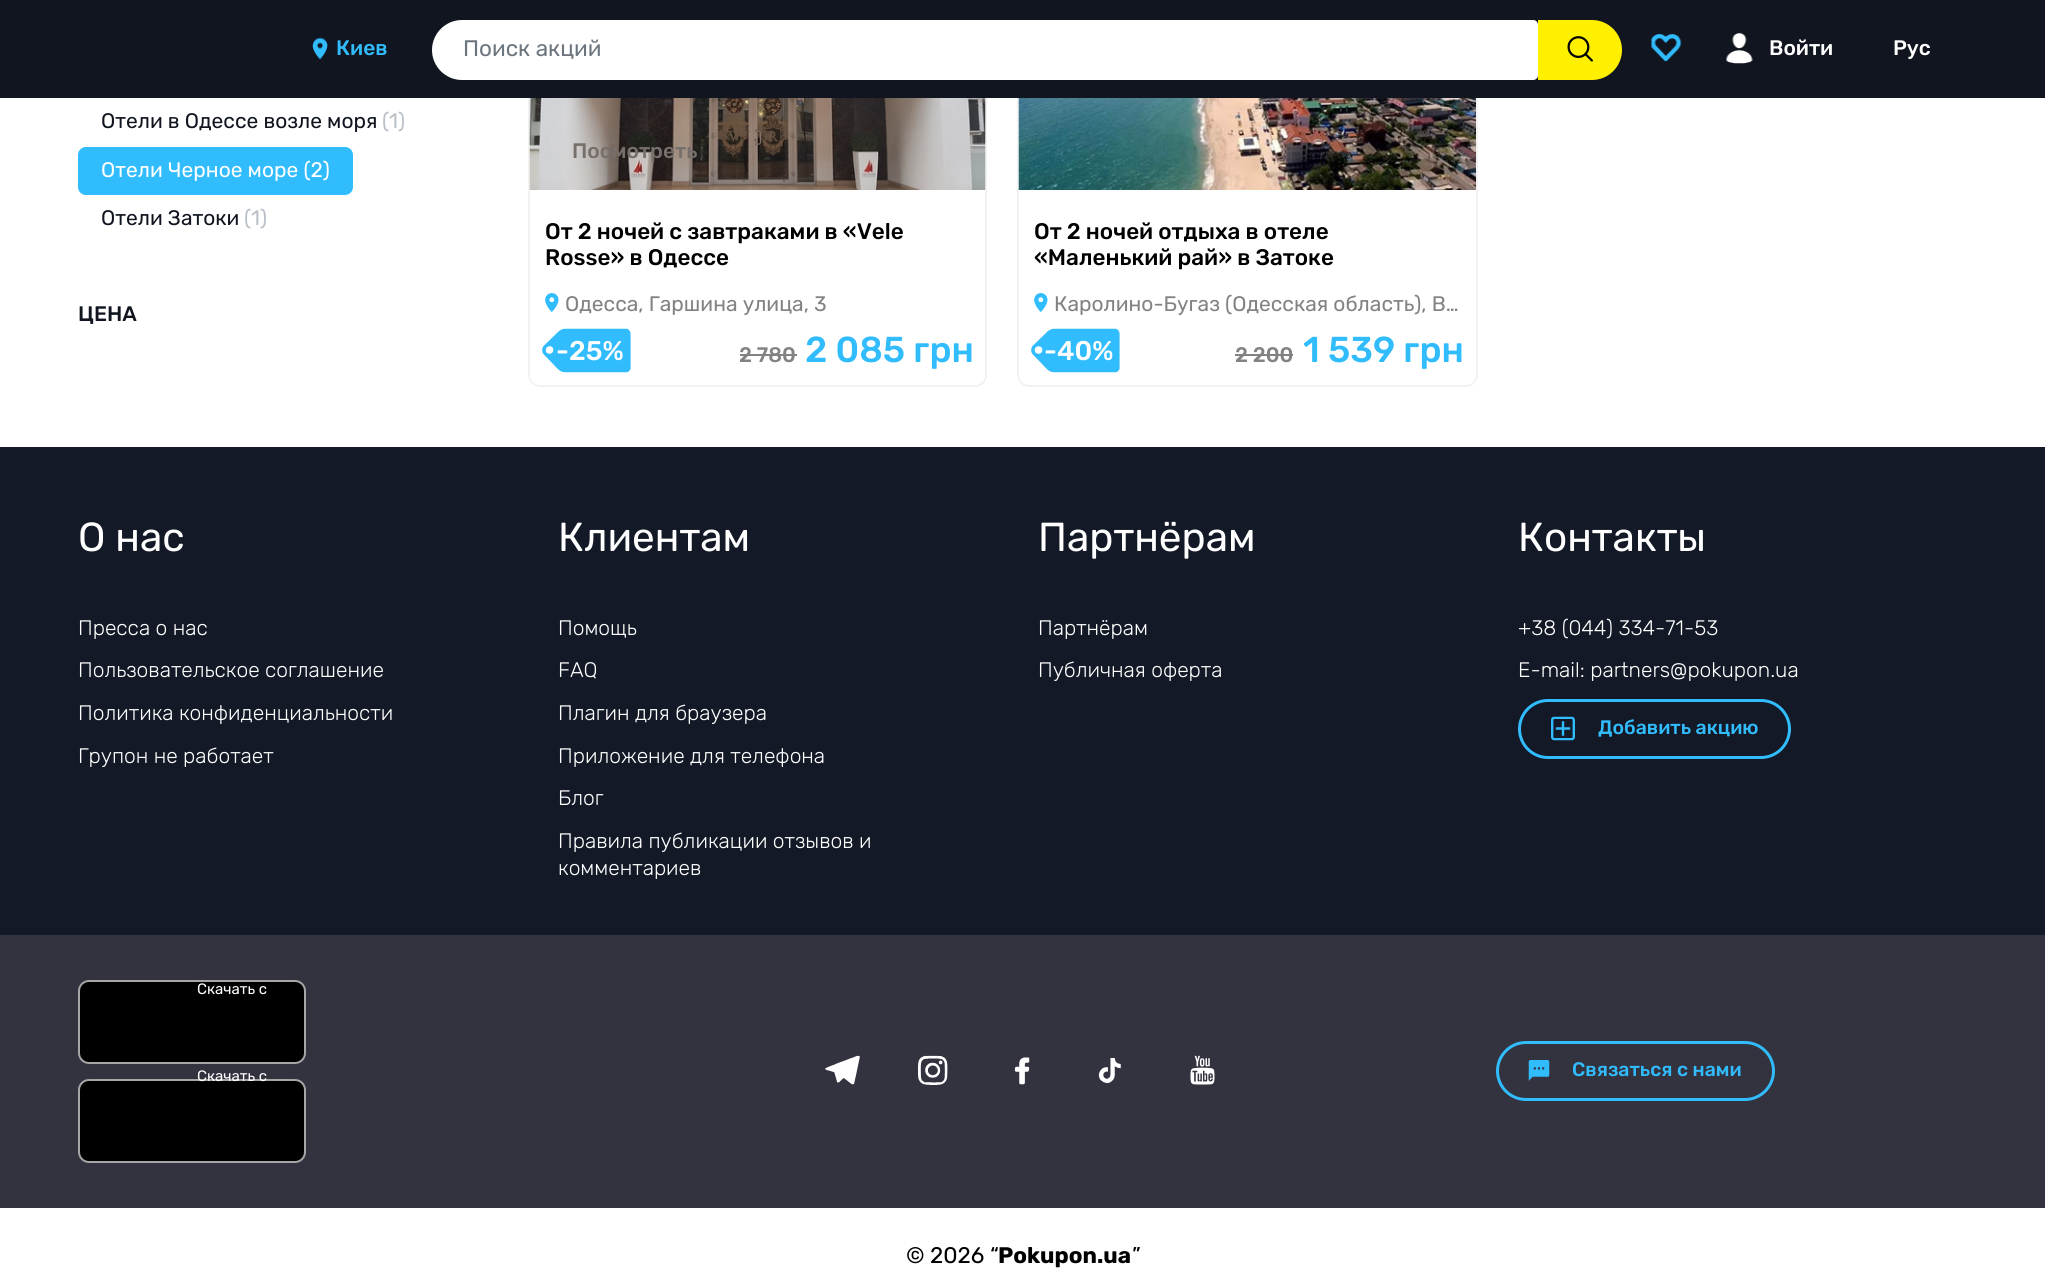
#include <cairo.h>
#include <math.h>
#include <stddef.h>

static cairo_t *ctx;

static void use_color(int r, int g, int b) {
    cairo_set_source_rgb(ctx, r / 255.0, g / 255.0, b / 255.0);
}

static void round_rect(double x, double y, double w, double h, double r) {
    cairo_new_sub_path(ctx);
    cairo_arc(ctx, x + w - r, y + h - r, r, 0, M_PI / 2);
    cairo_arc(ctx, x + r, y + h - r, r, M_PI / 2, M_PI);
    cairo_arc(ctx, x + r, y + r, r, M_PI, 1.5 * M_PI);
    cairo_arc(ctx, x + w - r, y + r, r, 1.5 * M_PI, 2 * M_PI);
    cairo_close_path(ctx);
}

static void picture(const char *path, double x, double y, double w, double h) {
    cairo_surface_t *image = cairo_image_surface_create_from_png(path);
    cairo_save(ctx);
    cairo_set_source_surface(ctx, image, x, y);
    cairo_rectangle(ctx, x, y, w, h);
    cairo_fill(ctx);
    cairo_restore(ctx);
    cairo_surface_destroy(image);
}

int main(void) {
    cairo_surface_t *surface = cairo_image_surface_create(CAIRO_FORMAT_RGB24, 2045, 1276);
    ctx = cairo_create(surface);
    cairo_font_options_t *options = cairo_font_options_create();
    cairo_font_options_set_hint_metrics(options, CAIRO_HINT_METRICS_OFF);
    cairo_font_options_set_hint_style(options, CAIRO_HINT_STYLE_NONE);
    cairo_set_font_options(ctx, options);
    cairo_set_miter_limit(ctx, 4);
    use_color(255, 255, 255);
    cairo_paint(ctx);
    round_rect(529, -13, 457, 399, 11);
    use_color(242, 242, 242);
    cairo_stroke(ctx);
    round_rect(1018, -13, 459, 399, 11);
    cairo_stroke(ctx);
    use_color(16, 21, 32);
    cairo_rectangle(ctx, 0, 0, 2045, 98);
    cairo_fill(ctx);
    picture("img1.png", 312, 37, 16, 23);
    cairo_select_font_face(ctx, "Rubik Medium", CAIRO_FONT_SLANT_NORMAL, CAIRO_FONT_WEIGHT_NORMAL);
    cairo_set_font_size(ctx, 21);
    use_color(49, 188, 254);
    cairo_move_to(ctx, 336, 55);
    cairo_show_text(ctx, "Киев");
    use_color(255, 255, 255);
    cairo_new_path(ctx);
    cairo_move_to(ctx, 462, 20);
    cairo_line_to(ctx, 1533, 20);
    cairo_curve_to(ctx, 1536, 20, 1538, 22, 1538, 25);
    cairo_line_to(ctx, 1538, 75);
    cairo_curve_to(ctx, 1538, 78, 1536, 80, 1533, 80);
    cairo_line_to(ctx, 462, 80);
    cairo_curve_to(ctx, 445.5, 80, 432, 66.5, 432, 50);
    cairo_curve_to(ctx, 432, 33.5, 445.5, 20, 462, 20);
    cairo_close_path(ctx);
    cairo_fill(ctx);
    cairo_select_font_face(ctx, "Rubik", CAIRO_FONT_SLANT_NORMAL, CAIRO_FONT_WEIGHT_NORMAL);
    cairo_set_font_size(ctx, 22.5);
    use_color(108, 117, 125);
    cairo_move_to(ctx, 463, 56);
    cairo_show_text(ctx, "Поиск акций");
    use_color(255, 240, 0);
    cairo_new_path(ctx);
    cairo_move_to(ctx, 1538, 20);
    cairo_line_to(ctx, 1592, 20);
    cairo_curve_to(ctx, 1608.5, 20, 1622, 33.5, 1622, 50);
    cairo_curve_to(ctx, 1622, 66.5, 1608.5, 80, 1592, 80);
    cairo_line_to(ctx, 1538, 80);
    cairo_close_path(ctx);
    cairo_fill(ctx);
    picture("img2.png", 1567, 36, 26, 26);
    picture("img3.png", 1651, 34, 31, 28);
    picture("img4.png", 1726, 33, 27, 31);
    cairo_select_font_face(ctx, "Rubik Medium", CAIRO_FONT_SLANT_NORMAL, CAIRO_FONT_WEIGHT_NORMAL);
    cairo_set_font_size(ctx, 21);
    use_color(255, 255, 255);
    cairo_move_to(ctx, 1769, 55);
    cairo_show_text(ctx, "Войти");
    cairo_move_to(ctx, 1893, 55);
    cairo_show_text(ctx, "Рус");
    cairo_select_font_face(ctx, "Rubik", CAIRO_FONT_SLANT_NORMAL, CAIRO_FONT_WEIGHT_NORMAL);
    use_color(16, 21, 32);
    cairo_move_to(ctx, 101, 128);
    cairo_show_text(ctx, "Отели в Одессе возле моря");
    use_color(186, 193, 201);
    cairo_move_to(ctx, 382, 128);
    cairo_show_text(ctx, "(1)");
    use_color(49, 188, 254);
    round_rect(78, 147, 275, 48, 8);
    cairo_fill(ctx);
    use_color(255, 255, 255);
    cairo_move_to(ctx, 101, 177);
    cairo_show_text(ctx, "Отели Черное море (2)");
    use_color(16, 21, 32);
    cairo_move_to(ctx, 101, 225);
    cairo_show_text(ctx, "Отели Затоки");
    use_color(186, 193, 201);
    cairo_move_to(ctx, 244, 225);
    cairo_show_text(ctx, "(1)");
    cairo_select_font_face(ctx, "Rubik Medium", CAIRO_FONT_SLANT_NORMAL, CAIRO_FONT_WEIGHT_NORMAL);
    use_color(16, 21, 32);
    cairo_move_to(ctx, 78, 321);
    cairo_show_text(ctx, "ЦЕНА");
    picture("img5.png", 529, 98, 457, 92);
    use_color(118, 111, 106);
    cairo_move_to(ctx, 572, 158);
    cairo_show_text(ctx, "Посмотреть");
    cairo_set_font_size(ctx, 22.5);
    use_color(0, 0, 0);
    cairo_move_to(ctx, 545, 239);
    cairo_show_text(ctx, "От 2 ночей с завтраками в «Vele");
    cairo_move_to(ctx, 545, 265);
    cairo_show_text(ctx, "Rosse» в Одессе");
    picture("img6.png", 545, 293, 14, 19);
    cairo_select_font_face(ctx, "Rubik", CAIRO_FONT_SLANT_NORMAL, CAIRO_FONT_WEIGHT_NORMAL);
    cairo_set_font_size(ctx, 21);
    use_color(130, 130, 130);
    cairo_move_to(ctx, 565, 311);
    cairo_show_text(ctx, "Одесса, Гаршина улица, 3");
    picture("img7.png", 542, 328, 89, 45);
    cairo_select_font_face(ctx, "Rubik Medium", CAIRO_FONT_SLANT_NORMAL, CAIRO_FONT_WEIGHT_NORMAL);
    cairo_set_font_size(ctx, 27);
    use_color(255, 255, 255);
    cairo_move_to(ctx, 556, 360);
    cairo_show_text(ctx, "-25%");
    cairo_set_font_size(ctx, 21);
    use_color(130, 130, 130);
    cairo_move_to(ctx, 739, 362);
    cairo_show_text(ctx, "2 780");
    cairo_rectangle(ctx, 740, 354, 57, 2);
    cairo_fill(ctx);
    cairo_set_font_size(ctx, 36);
    use_color(49, 188, 254);
    cairo_move_to(ctx, 805, 362);
    cairo_show_text(ctx, "2 085 грн");
    picture("img8.png", 1018, 98, 458, 92);
    cairo_set_font_size(ctx, 22.5);
    use_color(0, 0, 0);
    cairo_move_to(ctx, 1034, 239);
    cairo_show_text(ctx, "От 2 ночей отдыха в отеле");
    cairo_move_to(ctx, 1034, 265);
    cairo_show_text(ctx, "«Маленький рай» в Затоке");
    picture("img6.png", 1034, 293, 14, 19);
    cairo_select_font_face(ctx, "Rubik", CAIRO_FONT_SLANT_NORMAL, CAIRO_FONT_WEIGHT_NORMAL);
    cairo_set_font_size(ctx, 21);
    use_color(130, 130, 130);
    cairo_move_to(ctx, 1054, 311);
    cairo_show_text(ctx, "Каролино-Бугаз (Одесская область), В…");
    picture("img7.png", 1031, 328, 89, 45);
    cairo_select_font_face(ctx, "Rubik Medium", CAIRO_FONT_SLANT_NORMAL, CAIRO_FONT_WEIGHT_NORMAL);
    cairo_set_font_size(ctx, 27);
    use_color(255, 255, 255);
    cairo_move_to(ctx, 1044, 360);
    cairo_show_text(ctx, "-40%");
    cairo_set_font_size(ctx, 21);
    use_color(130, 130, 130);
    cairo_move_to(ctx, 1235, 362);
    cairo_show_text(ctx, "2 200");
    cairo_rectangle(ctx, 1235, 354, 58, 2);
    cairo_fill(ctx);
    cairo_set_font_size(ctx, 36);
    use_color(49, 188, 254);
    cairo_move_to(ctx, 1303, 362);
    cairo_show_text(ctx, "1 539 грн");
    use_color(19, 25, 38);
    cairo_rectangle(ctx, 0, 447, 2045, 488);
    cairo_fill(ctx);
    cairo_select_font_face(ctx, "Rubik", CAIRO_FONT_SLANT_NORMAL, CAIRO_FONT_WEIGHT_NORMAL);
    cairo_set_font_size(ctx, 40.5);
    use_color(255, 255, 255);
    cairo_move_to(ctx, 78, 551);
    cairo_show_text(ctx, "О нас");
    cairo_select_font_face(ctx, "Rubik Light", CAIRO_FONT_SLANT_NORMAL, CAIRO_FONT_WEIGHT_NORMAL);
    cairo_set_font_size(ctx, 21);
    cairo_move_to(ctx, 78, 635);
    cairo_show_text(ctx, "Пресса о нас");
    cairo_move_to(ctx, 78, 677);
    cairo_show_text(ctx, "Пользовательское соглашение");
    cairo_move_to(ctx, 78, 720);
    cairo_show_text(ctx, "Политика конфиденциальности");
    cairo_move_to(ctx, 78, 763);
    cairo_show_text(ctx, "Групон не работает");
    cairo_select_font_face(ctx, "Rubik", CAIRO_FONT_SLANT_NORMAL, CAIRO_FONT_WEIGHT_NORMAL);
    cairo_set_font_size(ctx, 40.5);
    cairo_move_to(ctx, 558, 551);
    cairo_show_text(ctx, "Клиентам");
    cairo_select_font_face(ctx, "Rubik Light", CAIRO_FONT_SLANT_NORMAL, CAIRO_FONT_WEIGHT_NORMAL);
    cairo_set_font_size(ctx, 21);
    cairo_move_to(ctx, 558, 635);
    cairo_show_text(ctx, "Помощь");
    cairo_move_to(ctx, 558, 677);
    cairo_show_text(ctx, "FAQ");
    cairo_move_to(ctx, 558, 720);
    cairo_show_text(ctx, "Плагин для браузера");
    cairo_move_to(ctx, 558, 763);
    cairo_show_text(ctx, "Приложение для телефона");
    cairo_move_to(ctx, 558, 805);
    cairo_show_text(ctx, "Блог");
    cairo_move_to(ctx, 558, 848);
    cairo_show_text(ctx, "Правила публикации отзывов и");
    cairo_move_to(ctx, 558, 875);
    cairo_show_text(ctx, "комментариев");
    cairo_select_font_face(ctx, "Rubik", CAIRO_FONT_SLANT_NORMAL, CAIRO_FONT_WEIGHT_NORMAL);
    cairo_set_font_size(ctx, 40.5);
    cairo_move_to(ctx, 1038, 551);
    cairo_show_text(ctx, "Партнёрам");
    cairo_select_font_face(ctx, "Rubik Light", CAIRO_FONT_SLANT_NORMAL, CAIRO_FONT_WEIGHT_NORMAL);
    cairo_set_font_size(ctx, 21);
    cairo_move_to(ctx, 1038, 635);
    cairo_show_text(ctx, "Партнёрам");
    cairo_move_to(ctx, 1038, 677);
    cairo_show_text(ctx, "Публичная оферта");
    cairo_select_font_face(ctx, "Rubik", CAIRO_FONT_SLANT_NORMAL, CAIRO_FONT_WEIGHT_NORMAL);
    cairo_set_font_size(ctx, 40.5);
    cairo_move_to(ctx, 1518, 551);
    cairo_show_text(ctx, "Контакты");
    cairo_select_font_face(ctx, "Rubik Light", CAIRO_FONT_SLANT_NORMAL, CAIRO_FONT_WEIGHT_NORMAL);
    cairo_set_font_size(ctx, 21);
    cairo_move_to(ctx, 1518, 635);
    cairo_show_text(ctx, "+38 (044) 334-71-53");
    cairo_move_to(ctx, 1518, 677);
    cairo_show_text(ctx, "E-mail: partners@pokupon.ua");
    round_rect(1519.5, 700.5, 270, 57, 28.5);
    use_color(49, 188, 254);
    cairo_set_line_width(ctx, 3);
    cairo_stroke(ctx);
    picture("img9.png", 1551, 716, 24, 25);
    cairo_select_font_face(ctx, "Rubik Medium", CAIRO_FONT_SLANT_NORMAL, CAIRO_FONT_WEIGHT_NORMAL);
    cairo_set_font_size(ctx, 19.5);
    cairo_move_to(ctx, 1598, 734);
    cairo_show_text(ctx, "Добавить акцию");
    use_color(51, 51, 64);
    cairo_rectangle(ctx, 0, 935, 2045, 273);
    cairo_fill(ctx);
    use_color(0, 0, 0);
    round_rect(79, 981, 226, 82, 10);
    cairo_fill_preserve(ctx);
    use_color(166, 166, 166);
    cairo_set_line_width(ctx, 2);
    cairo_stroke(ctx);
    cairo_select_font_face(ctx, "Rubik", CAIRO_FONT_SLANT_NORMAL, CAIRO_FONT_WEIGHT_NORMAL);
    cairo_set_font_size(ctx, 15);
    use_color(255, 255, 255);
    cairo_move_to(ctx, 197, 994);
    cairo_show_text(ctx, "Скачать с");
    use_color(0, 0, 0);
    round_rect(79, 1080, 226, 82, 10);
    cairo_fill_preserve(ctx);
    use_color(166, 166, 166);
    cairo_stroke(ctx);
    use_color(255, 255, 255);
    cairo_move_to(ctx, 197, 1081);
    cairo_show_text(ctx, "Скачать с");
    picture("img10.png", 825, 1055, 35, 30);
    picture("img11.png", 918, 1055, 30, 30);
    picture("img12.png", 1014, 1057, 16, 28);
    picture("img13.png", 1098, 1058, 23, 25);
    picture("img14.png", 1190, 1055, 25, 30);
    round_rect(1497.5, 1042.5, 276, 57, 28.5);
    use_color(49, 188, 254);
    cairo_set_line_width(ctx, 3);
    cairo_stroke(ctx);
    picture("img15.png", 1528, 1060, 22, 21);
    cairo_select_font_face(ctx, "Rubik Medium", CAIRO_FONT_SLANT_NORMAL, CAIRO_FONT_WEIGHT_NORMAL);
    cairo_set_font_size(ctx, 19.5);
    cairo_move_to(ctx, 1572, 1076);
    cairo_show_text(ctx, "Связаться с нами");
    cairo_select_font_face(ctx, "Rubik", CAIRO_FONT_SLANT_NORMAL, CAIRO_FONT_WEIGHT_NORMAL);
    cairo_set_font_size(ctx, 22.5);
    use_color(0, 0, 0);
    cairo_move_to(ctx, 906, 1263);
    cairo_show_text(ctx, "© 2026 “");
    cairo_select_font_face(ctx, "Rubik", CAIRO_FONT_SLANT_NORMAL, CAIRO_FONT_WEIGHT_BOLD);
    cairo_move_to(ctx, 998, 1263);
    cairo_show_text(ctx, "Pokupon.ua");
    cairo_select_font_face(ctx, "Rubik", CAIRO_FONT_SLANT_NORMAL, CAIRO_FONT_WEIGHT_NORMAL);
    cairo_move_to(ctx, 1132, 1263);
    cairo_show_text(ctx, "”");
    cairo_surface_write_to_png(surface, "result.png");
    cairo_font_options_destroy(options);
    cairo_destroy(ctx);
    cairo_surface_destroy(surface);
    return 0;
}
